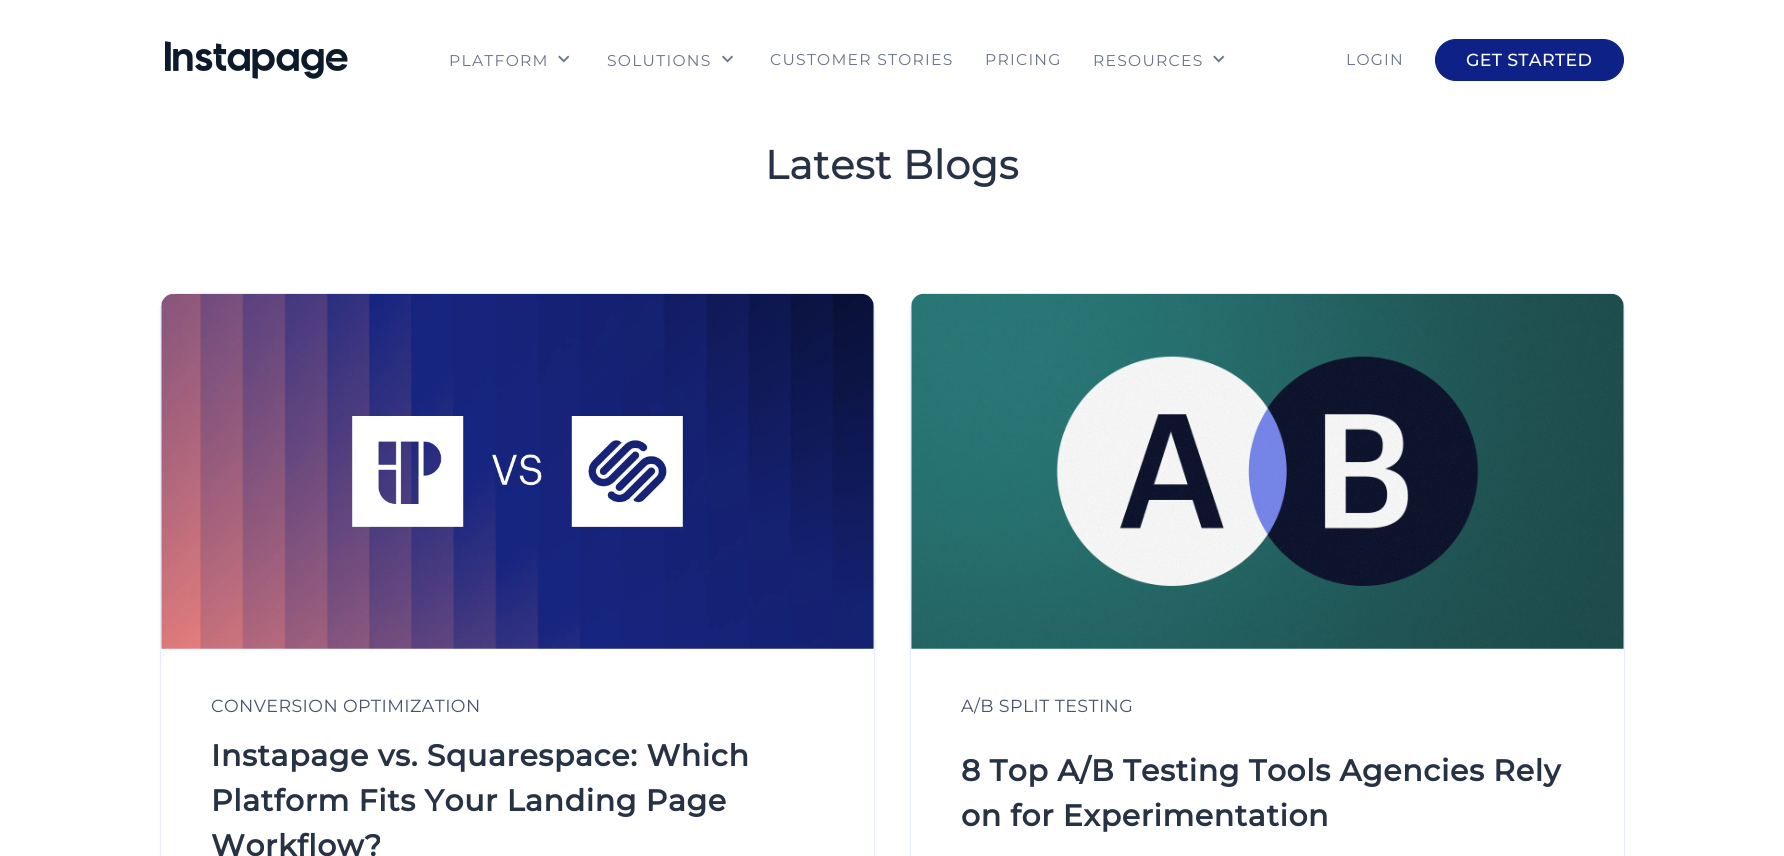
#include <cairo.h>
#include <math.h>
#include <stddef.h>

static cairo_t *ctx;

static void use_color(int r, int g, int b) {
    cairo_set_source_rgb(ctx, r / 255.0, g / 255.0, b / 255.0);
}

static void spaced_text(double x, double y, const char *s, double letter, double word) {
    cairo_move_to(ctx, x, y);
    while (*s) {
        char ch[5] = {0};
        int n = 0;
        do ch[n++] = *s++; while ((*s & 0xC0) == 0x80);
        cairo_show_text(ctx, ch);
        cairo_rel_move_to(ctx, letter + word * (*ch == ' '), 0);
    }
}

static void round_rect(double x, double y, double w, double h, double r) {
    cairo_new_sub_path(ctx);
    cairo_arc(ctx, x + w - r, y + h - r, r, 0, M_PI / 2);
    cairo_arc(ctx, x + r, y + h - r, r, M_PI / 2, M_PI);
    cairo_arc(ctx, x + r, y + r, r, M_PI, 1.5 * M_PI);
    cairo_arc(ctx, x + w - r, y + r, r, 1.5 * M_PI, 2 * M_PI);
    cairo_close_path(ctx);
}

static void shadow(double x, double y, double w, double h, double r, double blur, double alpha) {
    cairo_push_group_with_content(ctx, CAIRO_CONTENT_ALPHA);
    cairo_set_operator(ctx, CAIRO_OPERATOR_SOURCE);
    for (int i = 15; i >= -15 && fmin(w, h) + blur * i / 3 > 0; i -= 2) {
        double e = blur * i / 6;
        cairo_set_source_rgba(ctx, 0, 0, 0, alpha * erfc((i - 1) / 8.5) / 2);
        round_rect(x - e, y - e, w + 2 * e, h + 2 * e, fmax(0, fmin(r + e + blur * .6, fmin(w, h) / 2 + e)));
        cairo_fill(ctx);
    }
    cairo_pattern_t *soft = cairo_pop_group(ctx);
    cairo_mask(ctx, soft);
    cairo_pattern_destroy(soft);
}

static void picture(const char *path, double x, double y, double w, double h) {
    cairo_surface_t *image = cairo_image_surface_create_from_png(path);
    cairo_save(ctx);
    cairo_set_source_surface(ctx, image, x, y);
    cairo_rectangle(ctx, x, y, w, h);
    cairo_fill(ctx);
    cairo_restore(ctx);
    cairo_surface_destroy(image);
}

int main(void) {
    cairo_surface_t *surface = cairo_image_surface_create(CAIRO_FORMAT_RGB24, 1784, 856);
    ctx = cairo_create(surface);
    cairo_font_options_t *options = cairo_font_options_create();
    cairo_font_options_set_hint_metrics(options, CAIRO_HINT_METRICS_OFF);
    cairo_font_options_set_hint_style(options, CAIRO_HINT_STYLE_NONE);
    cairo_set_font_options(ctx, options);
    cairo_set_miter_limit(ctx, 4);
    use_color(255, 255, 255);
    cairo_paint(ctx);
    picture("img1.png", 165, 41, 183, 38);
    cairo_select_font_face(ctx, "Montserrat", CAIRO_FONT_SLANT_NORMAL, CAIRO_FONT_WEIGHT_NORMAL);
    cairo_set_font_size(ctx, 15.6);
    use_color(106, 117, 137);
    spaced_text(449, 66, "PLATFORM", 1.25, 0);
    picture("img2.png", 558, 55, 12, 8);
    spaced_text(607, 66, "SOLUTIONS", 1.25, 0);
    picture("img3.png", 722, 55, 11, 8);
    spaced_text(770, 65, "CUSTOMER STORIES", 1.25, 0);
    spaced_text(985, 65, "PRICING", 1.25, 0);
    spaced_text(1093, 66, "RESOURCES", 1.25, 0);
    picture("img2.png", 1213, 55, 12, 8);
    spaced_text(1346, 65, "LOGIN", 1.25, 0);
    use_color(13, 33, 135);
    round_rect(1435.5, 39.5, 188, 41, 20.5);
    cairo_fill_preserve(ctx);
    cairo_set_line_width(ctx, 1);
    cairo_stroke(ctx);
    cairo_select_font_face(ctx, "Montserrat Medium", CAIRO_FONT_SLANT_NORMAL, CAIRO_FONT_WEIGHT_NORMAL);
    cairo_set_font_size(ctx, 17.5);
    use_color(250, 253, 255);
    spaced_text(1466, 66, "GET STARTED", 0.25, 0);
    cairo_select_font_face(ctx, "Montserrat", CAIRO_FONT_SLANT_NORMAL, CAIRO_FONT_WEIGHT_BOLD);
    cairo_set_font_size(ctx, 40);
    use_color(39, 50, 69);
    spaced_text(765, 179, "Latest Blogs", 0.6, 0);
    use_color(41, 92, 176);
    shadow(161, 294, 713, 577, 13, 0.5, 0.25);
    use_color(34, 90, 182);
    shadow(161, 299, 713, 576, 13, 2, 0.12);
    use_color(255, 255, 255);
    round_rect(161, 294, 713, 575, 13);
    cairo_fill(ctx);
    picture("img4.png", 161, 293, 713, 356);
    cairo_select_font_face(ctx, "Montserrat", CAIRO_FONT_SLANT_NORMAL, CAIRO_FONT_WEIGHT_NORMAL);
    cairo_set_font_size(ctx, 17.5);
    use_color(69, 83, 107);
    spaced_text(211, 712, "CONVERSION OPTIMIZATION", 0.4, 0);
    cairo_select_font_face(ctx, "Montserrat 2", CAIRO_FONT_SLANT_NORMAL, CAIRO_FONT_WEIGHT_BOLD);
    cairo_set_font_size(ctx, 30);
    use_color(39, 50, 69);
    spaced_text(211, 766, "Instapage vs. Squarespace: Which", 0.6, 0);
    spaced_text(211, 811, "Platform Fits Your Landing Page", 0.6, 0);
    spaced_text(211, 856, "Workflow?", 0.6, 0);
    use_color(41, 92, 176);
    shadow(911, 294, 713, 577, 13, 0.5, 0.25);
    use_color(34, 90, 182);
    shadow(911, 299, 713, 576, 13, 2, 0.12);
    use_color(255, 255, 255);
    round_rect(911, 294, 713, 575, 13);
    cairo_fill(ctx);
    picture("img5.png", 911, 293, 713, 356);
    cairo_select_font_face(ctx, "Montserrat", CAIRO_FONT_SLANT_NORMAL, CAIRO_FONT_WEIGHT_NORMAL);
    cairo_set_font_size(ctx, 17.5);
    use_color(69, 83, 107);
    spaced_text(961, 712, "A/B SPLIT TESTING", 0.4, 0);
    cairo_select_font_face(ctx, "Montserrat 2", CAIRO_FONT_SLANT_NORMAL, CAIRO_FONT_WEIGHT_BOLD);
    cairo_set_font_size(ctx, 30);
    use_color(39, 50, 69);
    spaced_text(961, 781, "8 Top A/B Testing Tools Agencies Rely", 0.6, 0);
    spaced_text(961, 826, "on for Experimentation", 0.6, 0);
    cairo_surface_write_to_png(surface, "result.png");
    cairo_font_options_destroy(options);
    cairo_destroy(ctx);
    cairo_surface_destroy(surface);
    return 0;
}
